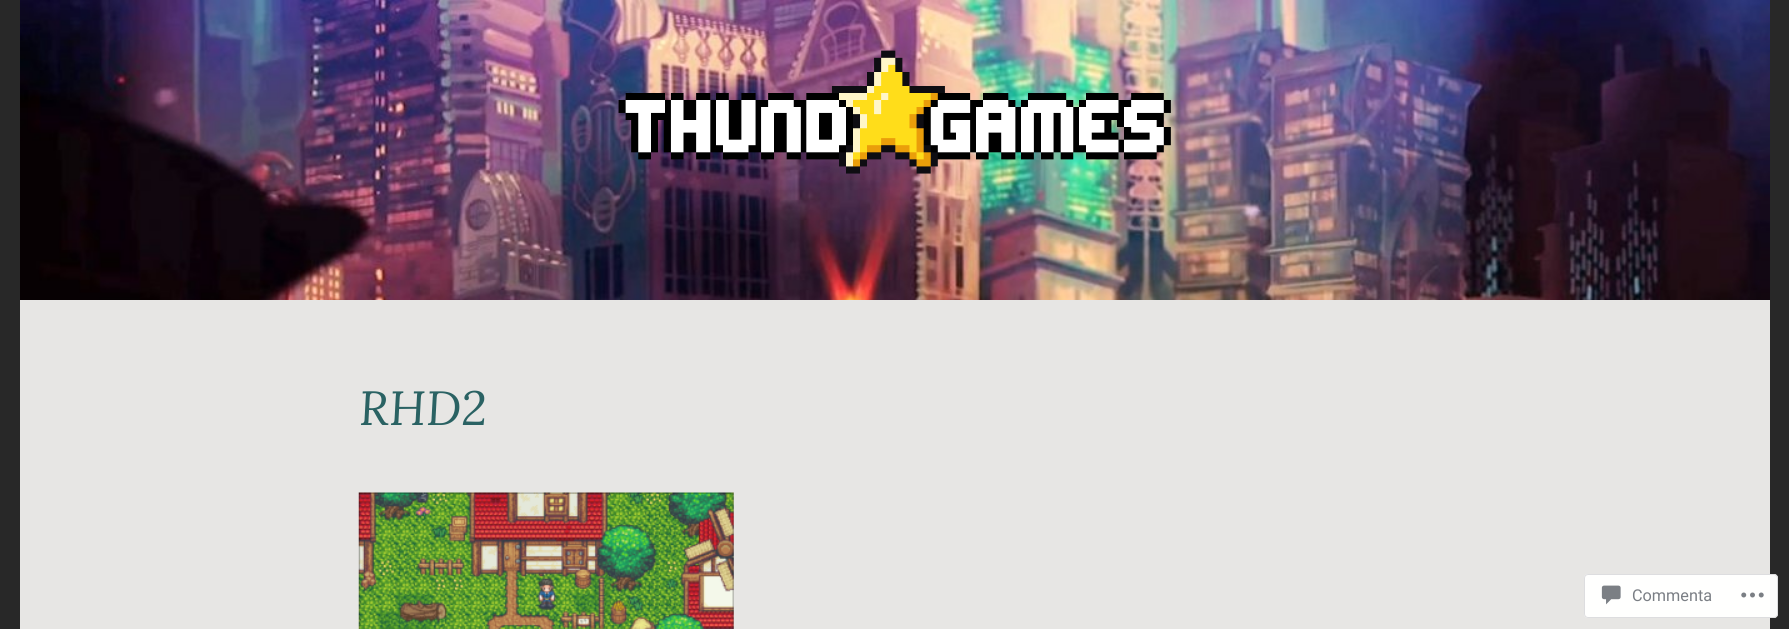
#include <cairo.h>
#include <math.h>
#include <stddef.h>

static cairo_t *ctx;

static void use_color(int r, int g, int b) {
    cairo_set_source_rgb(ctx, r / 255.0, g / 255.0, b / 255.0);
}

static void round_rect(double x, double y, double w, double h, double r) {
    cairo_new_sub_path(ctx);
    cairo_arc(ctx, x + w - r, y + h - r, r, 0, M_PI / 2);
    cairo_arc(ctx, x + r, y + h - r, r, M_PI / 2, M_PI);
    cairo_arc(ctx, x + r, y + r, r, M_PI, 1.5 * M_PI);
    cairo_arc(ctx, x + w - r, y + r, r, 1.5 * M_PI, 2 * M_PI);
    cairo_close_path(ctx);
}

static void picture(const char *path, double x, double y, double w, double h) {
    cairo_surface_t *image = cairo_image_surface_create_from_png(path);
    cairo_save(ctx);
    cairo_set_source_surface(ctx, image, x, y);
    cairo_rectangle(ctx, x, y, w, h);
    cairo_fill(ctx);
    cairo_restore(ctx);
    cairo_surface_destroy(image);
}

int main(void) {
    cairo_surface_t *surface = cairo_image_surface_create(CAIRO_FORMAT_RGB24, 1789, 629);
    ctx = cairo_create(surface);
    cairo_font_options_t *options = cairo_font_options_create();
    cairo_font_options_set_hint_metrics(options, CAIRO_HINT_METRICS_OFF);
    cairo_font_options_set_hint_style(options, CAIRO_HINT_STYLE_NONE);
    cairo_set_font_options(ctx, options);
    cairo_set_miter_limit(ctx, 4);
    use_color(40, 40, 40);
    cairo_paint(ctx);
    use_color(231, 230, 228);
    cairo_rectangle(ctx, 20, 300, 1750, 329);
    cairo_fill(ctx);
    picture("img1.png", 20, 0, 1750, 300);
    picture("img2.png", 618, 50, 553, 124);
    cairo_select_font_face(ctx, "Lora", CAIRO_FONT_SLANT_ITALIC, CAIRO_FONT_WEIGHT_NORMAL);
    cairo_set_font_size(ctx, 48);
    use_color(42, 98, 99);
    cairo_move_to(ctx, 359, 425);
    cairo_show_text(ctx, "RHD2");
    picture("img3.png", 358, 492, 376, 137);
    cairo_set_source_rgba(ctx, 1, 1, 1, 0.98);
    round_rect(1584, 574, 194, 44, 4);
    cairo_fill(ctx);
    round_rect(1584.5, 574.5, 193, 43, 3.5);
    cairo_set_source_rgba(ctx, 0.863, 0.863, 0.871, 0.98);
    cairo_set_line_width(ctx, 1);
    cairo_stroke(ctx);
    picture("img4.png", 1601, 585, 20, 20);
    cairo_select_font_face(ctx, "Roboto", CAIRO_FONT_SLANT_NORMAL, CAIRO_FONT_WEIGHT_NORMAL);
    cairo_set_font_size(ctx, 16.25);
    use_color(122, 126, 132);
    cairo_move_to(ctx, 1632, 601);
    cairo_show_text(ctx, "Commenta");
    picture("img5.png", 1741, 592, 23, 6);
    cairo_surface_write_to_png(surface, "result.png");
    cairo_font_options_destroy(options);
    cairo_destroy(ctx);
    cairo_surface_destroy(surface);
    return 0;
}
